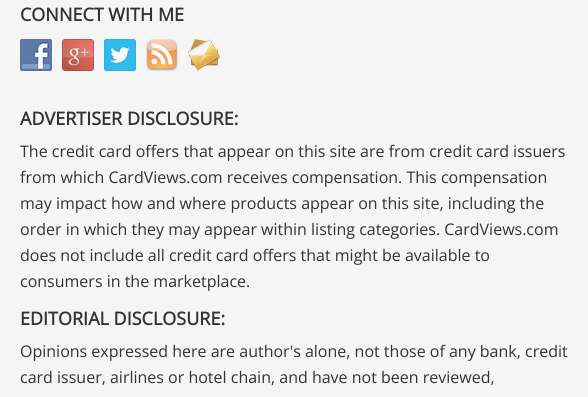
#include <cairo.h>
#include <math.h>
#include <stddef.h>

static cairo_t *ctx;

static void use_color(int r, int g, int b) {
    cairo_set_source_rgb(ctx, r / 255.0, g / 255.0, b / 255.0);
}

static void picture(const char *path, double x, double y, double w, double h) {
    cairo_surface_t *image = cairo_image_surface_create_from_png(path);
    cairo_save(ctx);
    cairo_set_source_surface(ctx, image, x, y);
    cairo_rectangle(ctx, x, y, w, h);
    cairo_fill(ctx);
    cairo_restore(ctx);
    cairo_surface_destroy(image);
}

int main(void) {
    cairo_surface_t *surface = cairo_image_surface_create(CAIRO_FORMAT_RGB24, 588, 397);
    ctx = cairo_create(surface);
    cairo_font_options_t *options = cairo_font_options_create();
    cairo_font_options_set_hint_metrics(options, CAIRO_HINT_METRICS_OFF);
    cairo_font_options_set_hint_style(options, CAIRO_HINT_STYLE_NONE);
    cairo_set_font_options(ctx, options);
    cairo_set_miter_limit(ctx, 4);
    use_color(245, 245, 245);
    cairo_paint(ctx);
    cairo_select_font_face(ctx, "Open Sans", CAIRO_FONT_SLANT_NORMAL, CAIRO_FONT_WEIGHT_BOLD);
    cairo_set_font_size(ctx, 18);
    use_color(51, 51, 51);
    cairo_move_to(ctx, 20, 21);
    cairo_show_text(ctx, "CONNECT WITH ME");
    picture("img1.png", 20, 39, 32, 32);
    picture("img2.png", 62, 39, 32, 32);
    picture("img3.png", 104, 39, 32, 32);
    picture("img4.png", 146, 39, 32, 32);
    picture("img5.png", 188, 39, 32, 32);
    cairo_move_to(ctx, 20, 125);
    cairo_show_text(ctx, "ADVERTISER DISCLOSURE:");
    cairo_select_font_face(ctx, "Open Sans", CAIRO_FONT_SLANT_NORMAL, CAIRO_FONT_WEIGHT_NORMAL);
    cairo_set_font_size(ctx, 16);
    cairo_move_to(ctx, 20, 157);
    cairo_show_text(ctx, "The credit card offers that appear on this site are from credit card issuers");
    cairo_move_to(ctx, 20, 183);
    cairo_show_text(ctx, "from which CardViews.com receives compensation. This compensation");
    cairo_move_to(ctx, 20, 209);
    cairo_show_text(ctx, "may impact how and where products appear on this site, including the");
    cairo_move_to(ctx, 20, 235);
    cairo_show_text(ctx, "order in which they may appear within listing categories. CardViews.com");
    cairo_move_to(ctx, 20, 261);
    cairo_show_text(ctx, "does not include all credit card offers that might be available to");
    cairo_move_to(ctx, 20, 287);
    cairo_show_text(ctx, "consumers in the marketplace.");
    cairo_select_font_face(ctx, "Open Sans", CAIRO_FONT_SLANT_NORMAL, CAIRO_FONT_WEIGHT_BOLD);
    cairo_set_font_size(ctx, 18);
    cairo_move_to(ctx, 20, 325);
    cairo_show_text(ctx, "EDITORIAL DISCLOSURE:");
    cairo_select_font_face(ctx, "Open Sans", CAIRO_FONT_SLANT_NORMAL, CAIRO_FONT_WEIGHT_NORMAL);
    cairo_set_font_size(ctx, 16);
    cairo_move_to(ctx, 20, 357);
    cairo_show_text(ctx, "Opinions expressed here are author's alone, not those of any bank, credit");
    cairo_move_to(ctx, 20, 383);
    cairo_show_text(ctx, "card issuer, airlines or hotel chain, and have not been reviewed,");
    cairo_surface_write_to_png(surface, "result.png");
    cairo_font_options_destroy(options);
    cairo_destroy(ctx);
    cairo_surface_destroy(surface);
    return 0;
}
